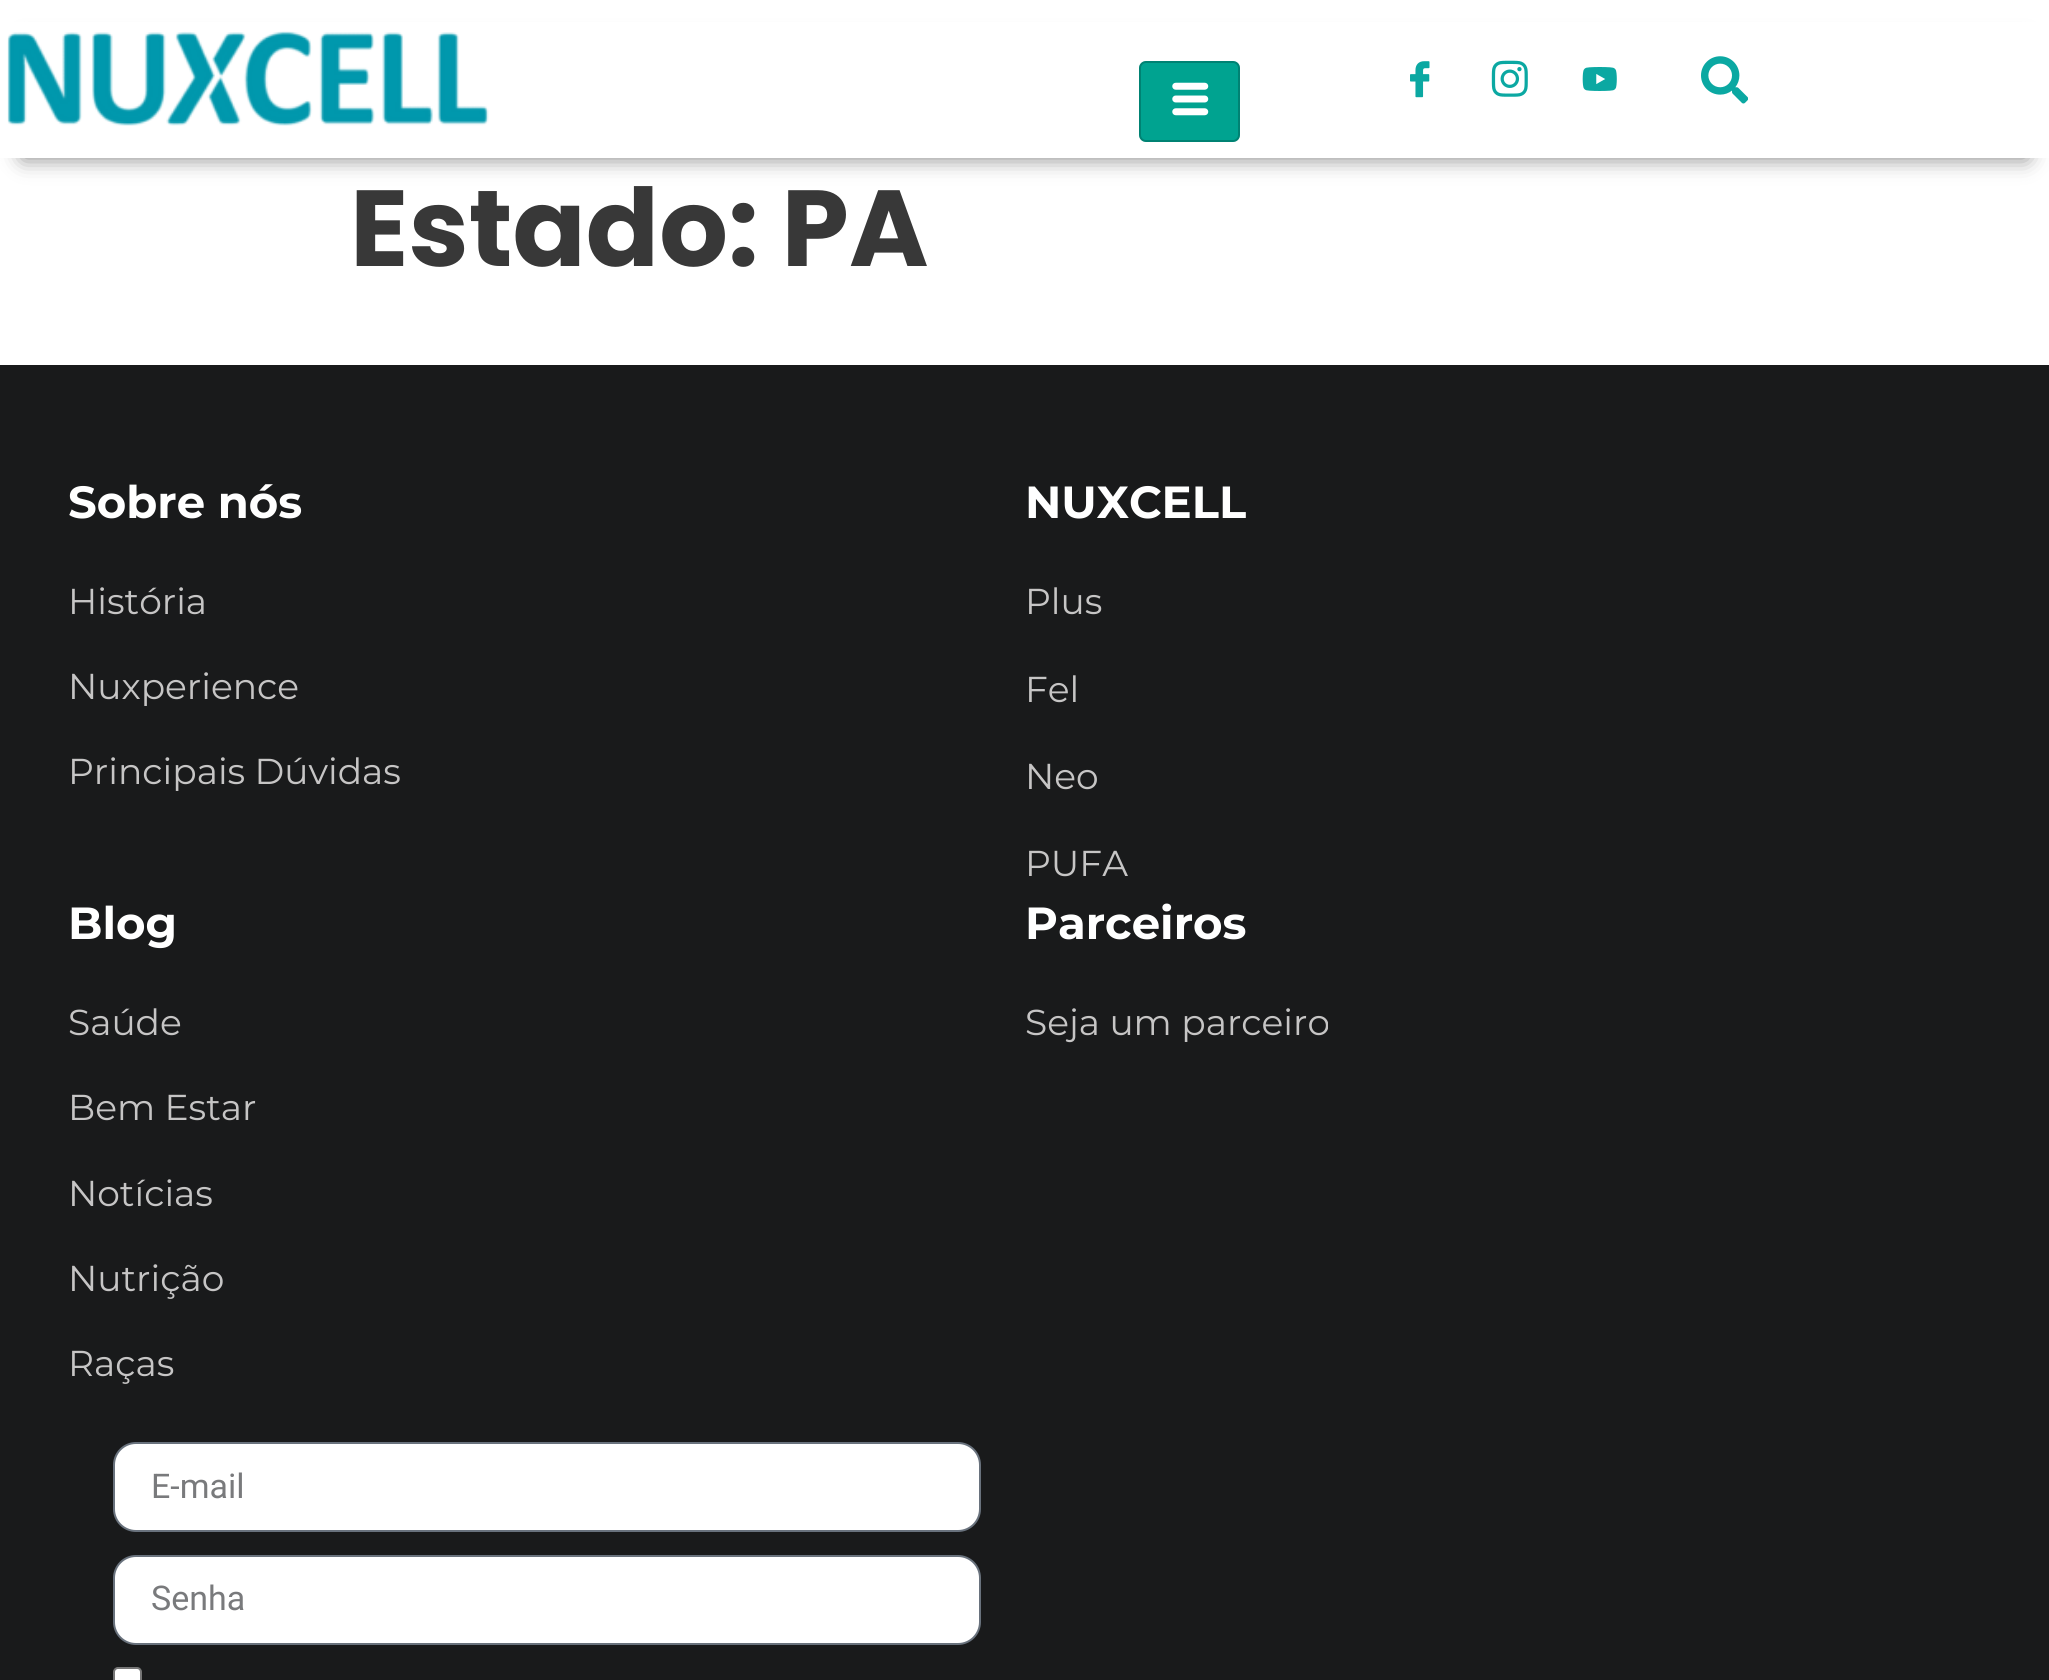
#include <cairo.h>
#include <math.h>
#include <stddef.h>

static cairo_t *ctx;

static void use_color(int r, int g, int b) {
    cairo_set_source_rgb(ctx, r / 255.0, g / 255.0, b / 255.0);
}

static void round_rect(double x, double y, double w, double h, double r) {
    cairo_new_sub_path(ctx);
    cairo_arc(ctx, x + w - r, y + h - r, r, 0, M_PI / 2);
    cairo_arc(ctx, x + r, y + h - r, r, M_PI / 2, M_PI);
    cairo_arc(ctx, x + r, y + r, r, M_PI, 1.5 * M_PI);
    cairo_arc(ctx, x + w - r, y + r, r, 1.5 * M_PI, 2 * M_PI);
    cairo_close_path(ctx);
}

static void shadow(double x, double y, double w, double h, double r, double blur, double alpha) {
    cairo_push_group_with_content(ctx, CAIRO_CONTENT_ALPHA);
    cairo_set_operator(ctx, CAIRO_OPERATOR_SOURCE);
    for (int i = 15; i >= -15 && fmin(w, h) + blur * i / 3 > 0; i -= 2) {
        double e = blur * i / 6;
        cairo_set_source_rgba(ctx, 0, 0, 0, alpha * erfc((i - 1) / 8.5) / 2);
        round_rect(x - e, y - e, w + 2 * e, h + 2 * e, fmax(0, fmin(r + e + blur * .6, fmin(w, h) / 2 + e)));
        cairo_fill(ctx);
    }
    cairo_pattern_t *soft = cairo_pop_group(ctx);
    cairo_mask(ctx, soft);
    cairo_pattern_destroy(soft);
}

static void picture(const char *path, double x, double y, double w, double h) {
    cairo_surface_t *image = cairo_image_surface_create_from_png(path);
    cairo_save(ctx);
    cairo_set_source_surface(ctx, image, x, y);
    cairo_rectangle(ctx, x, y, w, h);
    cairo_fill(ctx);
    cairo_restore(ctx);
    cairo_surface_destroy(image);
}

int main(void) {
    cairo_surface_t *surface = cairo_image_surface_create(CAIRO_FORMAT_RGB24, 2049, 1680);
    ctx = cairo_create(surface);
    cairo_font_options_t *options = cairo_font_options_create();
    cairo_font_options_set_hint_metrics(options, CAIRO_HINT_METRICS_OFF);
    cairo_font_options_set_hint_style(options, CAIRO_HINT_STYLE_NONE);
    cairo_set_font_options(ctx, options);
    cairo_set_miter_limit(ctx, 4);
    use_color(255, 255, 255);
    cairo_paint(ctx);
    use_color(0, 0, 0);
    shadow(23, 45, 2004, 113, 0, 11, 0.5);
    use_color(255, 255, 255);
    cairo_rectangle(ctx, 0, 22, 2049, 136);
    cairo_fill(ctx);
    picture("img1.png", 7, 31, 482, 95);
    use_color(0, 163, 144);
    round_rect(1139, 61, 101, 81, 7);
    cairo_fill(ctx);
    round_rect(1140, 62, 99, 79, 6);
    cairo_set_source_rgba(ctx, 0, 0, 0, 0.2);
    cairo_stroke(ctx);
    picture("img2.png", 1172, 82, 37, 34);
    picture("img3.png", 1410, 61, 20, 37);
    picture("img4.png", 1491, 60, 37, 37);
    picture("img5.png", 1582, 67, 35, 24);
    picture("img6.png", 1701, 56, 47, 48);
    cairo_select_font_face(ctx, "Poppins", CAIRO_FONT_SLANT_NORMAL, CAIRO_FONT_WEIGHT_BOLD);
    cairo_set_font_size(ctx, 108);
    use_color(56, 56, 56);
    cairo_move_to(ctx, 350, 266);
    cairo_show_text(ctx, "Estado: PA");
    use_color(25, 26, 27);
    cairo_rectangle(ctx, 0, 365, 2049, 1315);
    cairo_fill(ctx);
    cairo_select_font_face(ctx, "Montserrat", CAIRO_FONT_SLANT_NORMAL, CAIRO_FONT_WEIGHT_BOLD);
    cairo_set_font_size(ctx, 45);
    use_color(255, 255, 255);
    cairo_move_to(ctx, 68, 518);
    cairo_show_text(ctx, "Sobre nós");
    cairo_select_font_face(ctx, "Montserrat", CAIRO_FONT_SLANT_NORMAL, CAIRO_FONT_WEIGHT_NORMAL);
    cairo_set_font_size(ctx, 36);
    use_color(198, 197, 197);
    cairo_move_to(ctx, 68, 614);
    cairo_show_text(ctx, "História");
    cairo_move_to(ctx, 68, 699);
    cairo_show_text(ctx, "Nuxperience");
    cairo_move_to(ctx, 68, 784);
    cairo_show_text(ctx, "Principais Dúvidas");
    cairo_select_font_face(ctx, "Montserrat", CAIRO_FONT_SLANT_NORMAL, CAIRO_FONT_WEIGHT_BOLD);
    cairo_set_font_size(ctx, 45);
    use_color(255, 255, 255);
    cairo_move_to(ctx, 1025, 518);
    cairo_show_text(ctx, "NUXCELL");
    cairo_select_font_face(ctx, "Montserrat", CAIRO_FONT_SLANT_NORMAL, CAIRO_FONT_WEIGHT_NORMAL);
    cairo_set_font_size(ctx, 36);
    use_color(198, 197, 197);
    cairo_move_to(ctx, 1025, 614);
    cairo_show_text(ctx, "Plus");
    cairo_move_to(ctx, 1025, 702);
    cairo_show_text(ctx, "Fel");
    cairo_move_to(ctx, 1025, 789);
    cairo_show_text(ctx, "Neo");
    cairo_move_to(ctx, 1025, 876);
    cairo_show_text(ctx, "PUFA");
    cairo_select_font_face(ctx, "Montserrat", CAIRO_FONT_SLANT_NORMAL, CAIRO_FONT_WEIGHT_BOLD);
    cairo_set_font_size(ctx, 45);
    use_color(255, 255, 255);
    cairo_move_to(ctx, 68, 939);
    cairo_show_text(ctx, "Blog");
    cairo_select_font_face(ctx, "Montserrat", CAIRO_FONT_SLANT_NORMAL, CAIRO_FONT_WEIGHT_NORMAL);
    cairo_set_font_size(ctx, 36);
    use_color(198, 197, 197);
    cairo_move_to(ctx, 68, 1035);
    cairo_show_text(ctx, "Saúde");
    cairo_move_to(ctx, 68, 1120);
    cairo_show_text(ctx, "Bem Estar");
    cairo_move_to(ctx, 68, 1206);
    cairo_show_text(ctx, "Notícias");
    cairo_move_to(ctx, 68, 1291);
    cairo_show_text(ctx, "Nutrição");
    cairo_move_to(ctx, 68, 1376);
    cairo_show_text(ctx, "Raças");
    cairo_select_font_face(ctx, "Montserrat", CAIRO_FONT_SLANT_NORMAL, CAIRO_FONT_WEIGHT_BOLD);
    cairo_set_font_size(ctx, 45);
    use_color(255, 255, 255);
    cairo_move_to(ctx, 1025, 939);
    cairo_show_text(ctx, "Parceiros");
    cairo_select_font_face(ctx, "Montserrat", CAIRO_FONT_SLANT_NORMAL, CAIRO_FONT_WEIGHT_NORMAL);
    cairo_set_font_size(ctx, 36);
    use_color(198, 197, 197);
    cairo_move_to(ctx, 1025, 1035);
    cairo_show_text(ctx, "Seja um parceiro");
    use_color(255, 255, 255);
    round_rect(114, 1443, 866, 88, 22);
    cairo_fill_preserve(ctx);
    use_color(105, 114, 125);
    cairo_stroke(ctx);
    cairo_select_font_face(ctx, "Roboto", CAIRO_FONT_SLANT_NORMAL, CAIRO_FONT_WEIGHT_NORMAL);
    cairo_set_font_size(ctx, 34);
    use_color(121, 122, 124);
    cairo_move_to(ctx, 151, 1498);
    cairo_show_text(ctx, "E-mail");
    use_color(255, 255, 255);
    round_rect(114, 1556, 866, 88, 22);
    cairo_fill_preserve(ctx);
    use_color(105, 114, 125);
    cairo_stroke(ctx);
    use_color(121, 122, 124);
    cairo_move_to(ctx, 151, 1610);
    cairo_show_text(ctx, "Senha");
    use_color(255, 255, 255);
    round_rect(114, 1668, 27, 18, 4);
    cairo_fill_preserve(ctx);
    use_color(118, 118, 118);
    cairo_stroke(ctx);
    cairo_surface_write_to_png(surface, "result.png");
    cairo_font_options_destroy(options);
    cairo_destroy(ctx);
    cairo_surface_destroy(surface);
    return 0;
}
